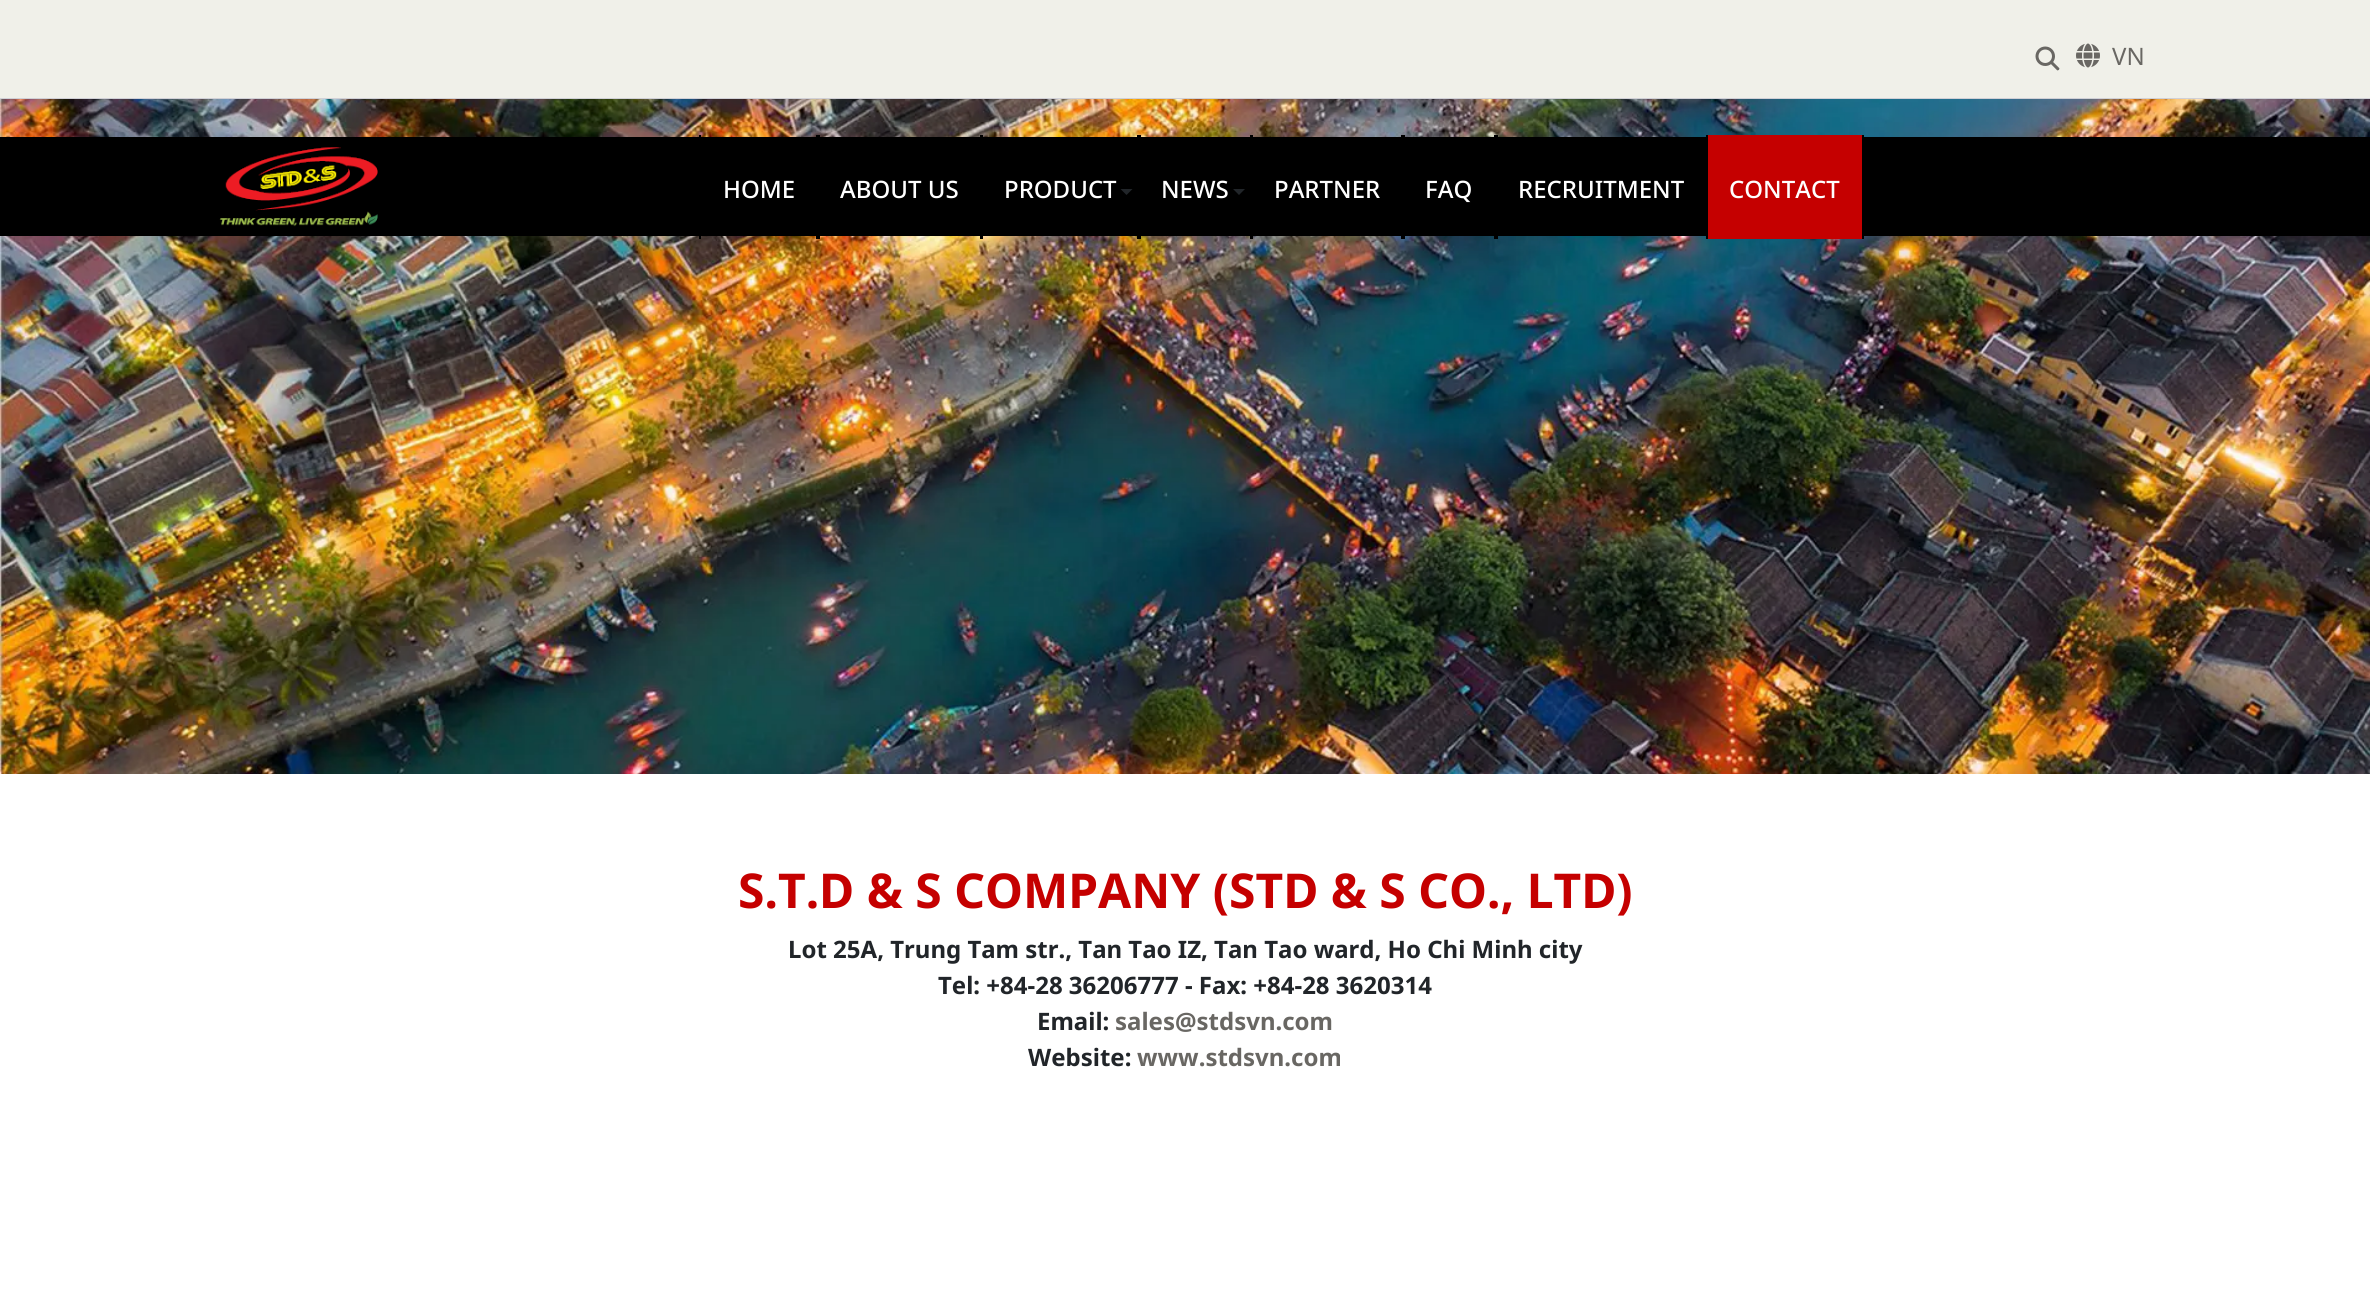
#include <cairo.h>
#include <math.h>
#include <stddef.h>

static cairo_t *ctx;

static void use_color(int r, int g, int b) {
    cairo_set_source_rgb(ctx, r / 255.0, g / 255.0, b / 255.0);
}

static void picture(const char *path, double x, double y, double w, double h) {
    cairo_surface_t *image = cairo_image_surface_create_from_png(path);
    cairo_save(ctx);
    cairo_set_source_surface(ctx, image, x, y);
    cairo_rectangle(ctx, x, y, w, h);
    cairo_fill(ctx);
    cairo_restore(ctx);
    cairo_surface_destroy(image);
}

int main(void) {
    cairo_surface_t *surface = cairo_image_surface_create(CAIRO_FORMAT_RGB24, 2370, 1315);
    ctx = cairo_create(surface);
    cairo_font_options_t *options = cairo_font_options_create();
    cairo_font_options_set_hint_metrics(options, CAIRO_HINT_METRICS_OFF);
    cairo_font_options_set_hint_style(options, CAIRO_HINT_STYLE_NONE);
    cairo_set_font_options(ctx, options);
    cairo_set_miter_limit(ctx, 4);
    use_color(255, 255, 255);
    cairo_paint(ctx);
    use_color(240, 240, 233);
    cairo_rectangle(ctx, 0, 0, 2370, 98);
    cairo_fill(ctx);
    use_color(208, 208, 214);
    cairo_rectangle(ctx, 0, 98, 2370, 1);
    cairo_fill(ctx);
    picture("img1.png", 2035, 46, 25, 25);
    picture("img2.png", 2076, 43, 24, 25);
    cairo_select_font_face(ctx, "Noto Sans", CAIRO_FONT_SLANT_NORMAL, CAIRO_FONT_WEIGHT_NORMAL);
    cairo_set_font_size(ctx, 24);
    use_color(105, 103, 99);
    cairo_move_to(ctx, 2112, 65);
    cairo_show_text(ctx, "VN");
    picture("img3.png", 0, 99, 2370, 675);
    use_color(0, 0, 0);
    cairo_rectangle(ctx, 0, 137, 2370, 99);
    cairo_fill(ctx);
    picture("img4.png", 219, 147, 159, 80);
    cairo_select_font_face(ctx, "Noto Sans Medium", CAIRO_FONT_SLANT_NORMAL, CAIRO_FONT_WEIGHT_NORMAL);
    use_color(255, 255, 255);
    cairo_move_to(ctx, 723, 198);
    cairo_show_text(ctx, "HOME");
    use_color(0, 0, 0);
    cairo_rectangle(ctx, 816, 135, 4, 104);
    cairo_fill(ctx);
    cairo_rectangle(ctx, 699, 135, 2, 104);
    cairo_fill(ctx);
    use_color(255, 255, 255);
    cairo_move_to(ctx, 840, 198);
    cairo_show_text(ctx, "ABOUT US");
    use_color(0, 0, 0);
    cairo_rectangle(ctx, 980, 135, 3, 104);
    cairo_fill(ctx);
    use_color(255, 255, 255);
    cairo_move_to(ctx, 1004, 198);
    cairo_show_text(ctx, "PRODUCT");
    use_color(0, 0, 0);
    cairo_rectangle(ctx, 1137, 135, 4, 104);
    cairo_fill(ctx);
    use_color(33, 37, 41);
    cairo_new_path(ctx);
    cairo_move_to(ctx, 1120.5, 189);
    cairo_line_to(ctx, 1132.5, 189);
    cairo_line_to(ctx, 1126.5, 195);
    cairo_close_path(ctx);
    cairo_fill(ctx);
    use_color(255, 255, 255);
    cairo_move_to(ctx, 1161, 198);
    cairo_show_text(ctx, "NEWS");
    use_color(0, 0, 0);
    cairo_rectangle(ctx, 1250, 135, 3, 104);
    cairo_fill(ctx);
    use_color(33, 37, 41);
    cairo_new_path(ctx);
    cairo_move_to(ctx, 1233, 189);
    cairo_line_to(ctx, 1245, 189);
    cairo_line_to(ctx, 1239, 195);
    cairo_close_path(ctx);
    cairo_fill(ctx);
    use_color(255, 255, 255);
    cairo_move_to(ctx, 1274, 198);
    cairo_show_text(ctx, "PARTNER");
    use_color(0, 0, 0);
    cairo_rectangle(ctx, 1401, 135, 4, 104);
    cairo_fill(ctx);
    use_color(255, 255, 255);
    cairo_move_to(ctx, 1425, 198);
    cairo_show_text(ctx, "FAQ");
    use_color(0, 0, 0);
    cairo_rectangle(ctx, 1494, 135, 4, 104);
    cairo_fill(ctx);
    use_color(255, 255, 255);
    cairo_move_to(ctx, 1518, 198);
    cairo_show_text(ctx, "RECRUITMENT");
    use_color(197, 0, 0);
    cairo_rectangle(ctx, 1708, 135, 154, 104);
    cairo_fill(ctx);
    use_color(255, 255, 255);
    cairo_move_to(ctx, 1729, 198);
    cairo_show_text(ctx, "CONTACT");
    use_color(0, 0, 0);
    cairo_rectangle(ctx, 1862, 135, 2, 104);
    cairo_fill(ctx);
    cairo_rectangle(ctx, 1706, 135, 2, 104);
    cairo_fill(ctx);
    cairo_select_font_face(ctx, "Noto Sans", CAIRO_FONT_SLANT_NORMAL, CAIRO_FONT_WEIGHT_BOLD);
    cairo_set_font_size(ctx, 48);
    use_color(197, 0, 0);
    cairo_move_to(ctx, 738, 908);
    cairo_show_text(ctx, "S.T.D & S COMPANY (STD & S CO., LTD)");
    cairo_set_font_size(ctx, 24);
    use_color(33, 37, 41);
    cairo_move_to(ctx, 788, 958);
    cairo_show_text(ctx, "Lot 25A, Trung Tam str., Tan Tao IZ, Tan Tao ward, Ho Chi Minh city");
    cairo_move_to(ctx, 938, 994);
    cairo_show_text(ctx, "Tel: +84-28 36206777 - Fax: +84-28 3620314");
    cairo_move_to(ctx, 1037, 1030);
    cairo_show_text(ctx, "Email:");
    use_color(105, 103, 99);
    cairo_move_to(ctx, 1115, 1030);
    cairo_show_text(ctx, "sales@stdsvn.com");
    use_color(33, 37, 41);
    cairo_move_to(ctx, 1028, 1066);
    cairo_show_text(ctx, "Website:");
    use_color(105, 103, 99);
    cairo_move_to(ctx, 1137, 1066);
    cairo_show_text(ctx, "www.stdsvn.com");
    cairo_surface_write_to_png(surface, "result.png");
    cairo_font_options_destroy(options);
    cairo_destroy(ctx);
    cairo_surface_destroy(surface);
    return 0;
}
